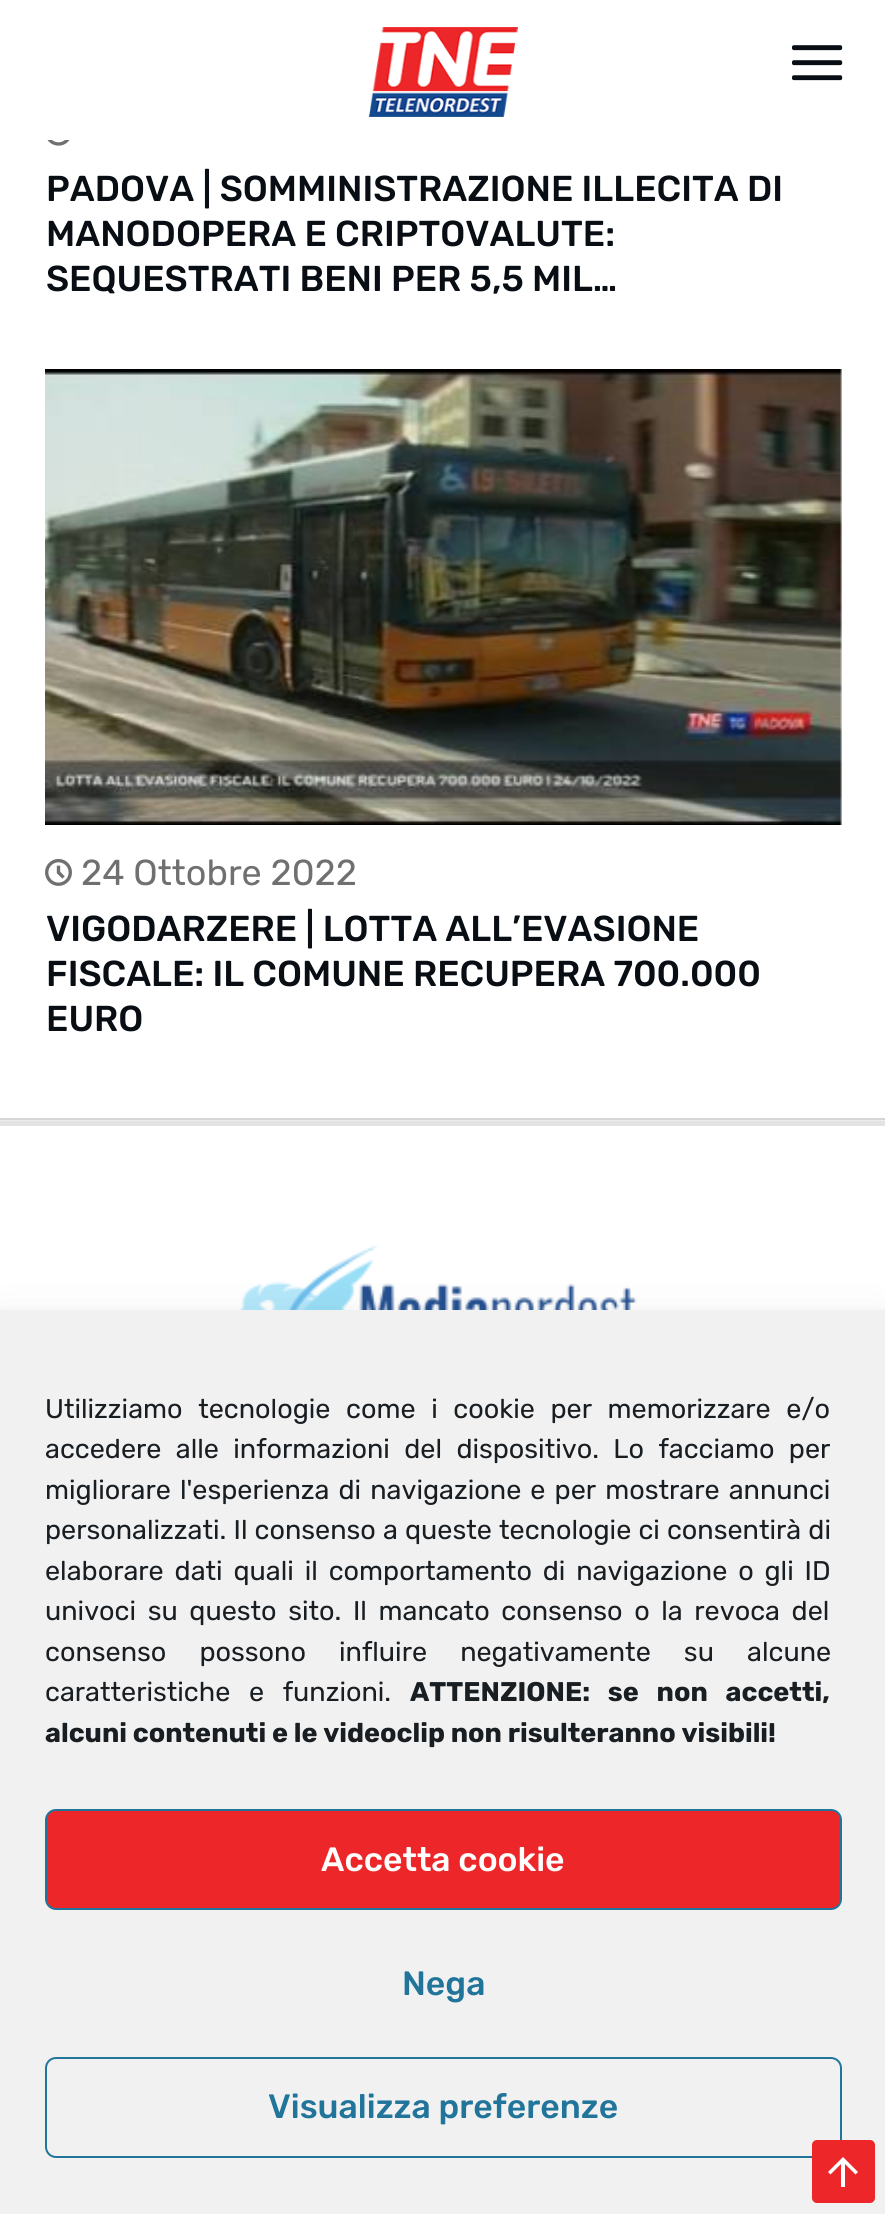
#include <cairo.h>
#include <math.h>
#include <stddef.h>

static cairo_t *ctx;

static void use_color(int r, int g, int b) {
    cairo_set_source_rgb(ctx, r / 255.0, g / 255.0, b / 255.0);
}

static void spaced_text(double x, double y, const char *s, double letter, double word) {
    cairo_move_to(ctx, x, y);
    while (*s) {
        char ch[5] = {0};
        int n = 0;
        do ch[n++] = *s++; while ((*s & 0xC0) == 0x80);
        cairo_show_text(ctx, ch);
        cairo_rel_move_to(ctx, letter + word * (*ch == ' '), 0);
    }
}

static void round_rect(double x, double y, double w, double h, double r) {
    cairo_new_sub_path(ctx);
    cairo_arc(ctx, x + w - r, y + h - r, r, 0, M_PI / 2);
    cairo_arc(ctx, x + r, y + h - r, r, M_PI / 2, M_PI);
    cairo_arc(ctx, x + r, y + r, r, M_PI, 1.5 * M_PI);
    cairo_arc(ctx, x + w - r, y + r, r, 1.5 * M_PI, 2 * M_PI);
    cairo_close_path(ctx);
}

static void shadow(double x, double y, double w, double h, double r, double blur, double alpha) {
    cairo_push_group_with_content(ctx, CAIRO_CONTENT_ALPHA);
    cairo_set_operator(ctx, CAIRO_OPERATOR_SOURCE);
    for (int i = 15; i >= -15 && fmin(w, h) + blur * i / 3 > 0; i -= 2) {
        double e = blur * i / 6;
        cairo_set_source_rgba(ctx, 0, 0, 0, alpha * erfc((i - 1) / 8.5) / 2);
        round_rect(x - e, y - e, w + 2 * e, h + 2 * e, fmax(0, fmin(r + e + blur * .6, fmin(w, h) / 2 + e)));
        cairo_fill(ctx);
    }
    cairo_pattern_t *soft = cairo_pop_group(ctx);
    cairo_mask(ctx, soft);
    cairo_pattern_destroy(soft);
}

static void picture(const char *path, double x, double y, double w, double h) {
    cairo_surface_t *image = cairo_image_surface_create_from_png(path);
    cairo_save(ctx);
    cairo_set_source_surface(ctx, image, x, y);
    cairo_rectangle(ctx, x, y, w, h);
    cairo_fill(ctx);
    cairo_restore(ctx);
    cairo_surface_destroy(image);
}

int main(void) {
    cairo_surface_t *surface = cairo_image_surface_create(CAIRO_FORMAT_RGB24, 885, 2214);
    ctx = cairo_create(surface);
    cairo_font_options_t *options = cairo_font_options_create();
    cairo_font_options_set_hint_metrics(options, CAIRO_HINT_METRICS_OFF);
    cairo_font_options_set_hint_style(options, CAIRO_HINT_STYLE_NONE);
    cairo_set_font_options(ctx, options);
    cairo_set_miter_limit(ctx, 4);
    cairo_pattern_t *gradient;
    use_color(255, 255, 255);
    cairo_paint(ctx);
    picture("img1.png", 369, 27, 149, 90);
    picture("img2.png", 792, 45, 51, 36);
    picture("img3.png", 47, 140, 23, 6);
    cairo_select_font_face(ctx, "Rubik Medium", CAIRO_FONT_SLANT_NORMAL, CAIRO_FONT_WEIGHT_NORMAL);
    cairo_set_font_size(ctx, 36);
    use_color(8, 14, 20);
    cairo_move_to(ctx, 46, 201);
    cairo_show_text(ctx, "PADOVA | SOMMINISTRAZIONE ILLECITA DI");
    cairo_move_to(ctx, 46, 246);
    cairo_show_text(ctx, "MANODOPERA E CRIPTOVALUTE:");
    cairo_move_to(ctx, 46, 291);
    cairo_show_text(ctx, "SEQUESTRATI BENI PER 5,5 MIL…");
    picture("img4.png", 45, 369, 797, 456);
    picture("img5.png", 45, 858, 27, 28);
    cairo_select_font_face(ctx, "Rubik", CAIRO_FONT_SLANT_NORMAL, CAIRO_FONT_WEIGHT_NORMAL);
    use_color(112, 112, 112);
    cairo_move_to(ctx, 81, 885);
    cairo_show_text(ctx, "24 Ottobre 2022");
    cairo_select_font_face(ctx, "Rubik Medium", CAIRO_FONT_SLANT_NORMAL, CAIRO_FONT_WEIGHT_NORMAL);
    use_color(8, 14, 20);
    cairo_move_to(ctx, 46, 941);
    cairo_show_text(ctx, "VIGODARZERE | LOTTA ALL’EVASIONE");
    cairo_move_to(ctx, 46, 986);
    cairo_show_text(ctx, "FISCALE: IL COMUNE RECUPERA 700.000");
    cairo_move_to(ctx, 46, 1031);
    cairo_show_text(ctx, "EURO");
    gradient = cairo_pattern_create_linear(371, -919, 515, 1146);
    cairo_pattern_add_color_stop_rgba(gradient, 0, 1, 1, 1, 1);
    cairo_pattern_add_color_stop_rgba(gradient, 1, 0.929, 0.929, 0.929, 1);
    cairo_set_source(ctx, gradient);
    cairo_pattern_destroy(gradient);
    cairo_rectangle(ctx, 0, 1120, 885, 1);
    cairo_fill(ctx);
    use_color(213, 213, 213);
    cairo_rectangle(ctx, 0, 1118, 885, 2);
    cairo_fill(ctx);
    use_color(227, 227, 227);
    cairo_rectangle(ctx, 0, 1121, 885, 5);
    cairo_fill(ctx);
    picture("img6.png", 238, 1245, 399, 65);
    use_color(0, 0, 0);
    shadow(0, 1332, 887, 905, 0, 22.5, 0.19);
    use_color(241, 241, 241);
    cairo_rectangle(ctx, 0, 1310, 885, 904);
    cairo_fill(ctx);
    cairo_select_font_face(ctx, "Rubik", CAIRO_FONT_SLANT_NORMAL, CAIRO_FONT_WEIGHT_NORMAL);
    cairo_set_font_size(ctx, 27);
    use_color(25, 30, 35);
    spaced_text(45, 1418, "Utilizziamo tecnologie come i cookie per memorizzare e/o", 0, 9);
    spaced_text(45, 1458, "accedere alle informazioni del dispositivo. Lo facciamo per", 0, 7.75);
    spaced_text(45, 1499, "migliorare l'esperienza di navigazione e per mostrare annunci", 0, 2.5);
    spaced_text(45, 1539, "personalizzati. Il consenso a queste tecnologie ci consentirà di", 0, 0.5);
    spaced_text(45, 1580, "elaborare dati quali il comportamento di navigazione o gli ID", 0, 4.25);
    spaced_text(45, 1620, "univoci su questo sito. Il mancato consenso o la revoca del", 0, 5);
    spaced_text(45, 1661, "consenso possono influire negativamente su alcune", 0, 26.5);
    spaced_text(45, 1701, "caratteristiche e funzioni.", 0, 12);
    cairo_select_font_face(ctx, "Rubik", CAIRO_FONT_SLANT_NORMAL, CAIRO_FONT_WEIGHT_BOLD);
    spaced_text(410, 1701, "ATTENZIONE: se non accetti,", 0, 12);
    cairo_move_to(ctx, 45, 1742);
    cairo_show_text(ctx, "alcuni contenuti e le videoclip non risulteranno visibili!");
    use_color(237, 39, 41);
    round_rect(46, 1810, 795, 99, 10);
    cairo_fill_preserve(ctx);
    use_color(33, 117, 155);
    cairo_stroke(ctx);
    cairo_select_font_face(ctx, "Rubik Medium", CAIRO_FONT_SLANT_NORMAL, CAIRO_FONT_WEIGHT_NORMAL);
    cairo_set_font_size(ctx, 33.75);
    use_color(255, 255, 255);
    cairo_move_to(ctx, 321, 1871);
    cairo_show_text(ctx, "Accetta cookie");
    use_color(33, 117, 155);
    cairo_move_to(ctx, 402, 1995);
    cairo_show_text(ctx, "Nega");
    round_rect(46, 2058, 795, 99, 10);
    cairo_stroke(ctx);
    cairo_move_to(ctx, 268, 2118);
    cairo_show_text(ctx, "Visualizza preferenze");
    use_color(237, 39, 41);
    round_rect(812, 2140, 63, 63, 5);
    cairo_fill(ctx);
    use_color(255, 255, 255);
    cairo_new_path(ctx);
    cairo_move_to(ctx, 845, 2187);
    cairo_line_to(ctx, 841, 2187);
    cairo_line_to(ctx, 841, 2164);
    cairo_line_to(ctx, 830.5, 2174.5);
    cairo_line_to(ctx, 828, 2172);
    cairo_line_to(ctx, 843, 2157);
    cairo_line_to(ctx, 858, 2172);
    cairo_line_to(ctx, 855.5, 2174.5);
    cairo_line_to(ctx, 845, 2164);
    cairo_close_path(ctx);
    cairo_fill(ctx);
    cairo_surface_write_to_png(surface, "result.png");
    cairo_font_options_destroy(options);
    cairo_destroy(ctx);
    cairo_surface_destroy(surface);
    return 0;
}
